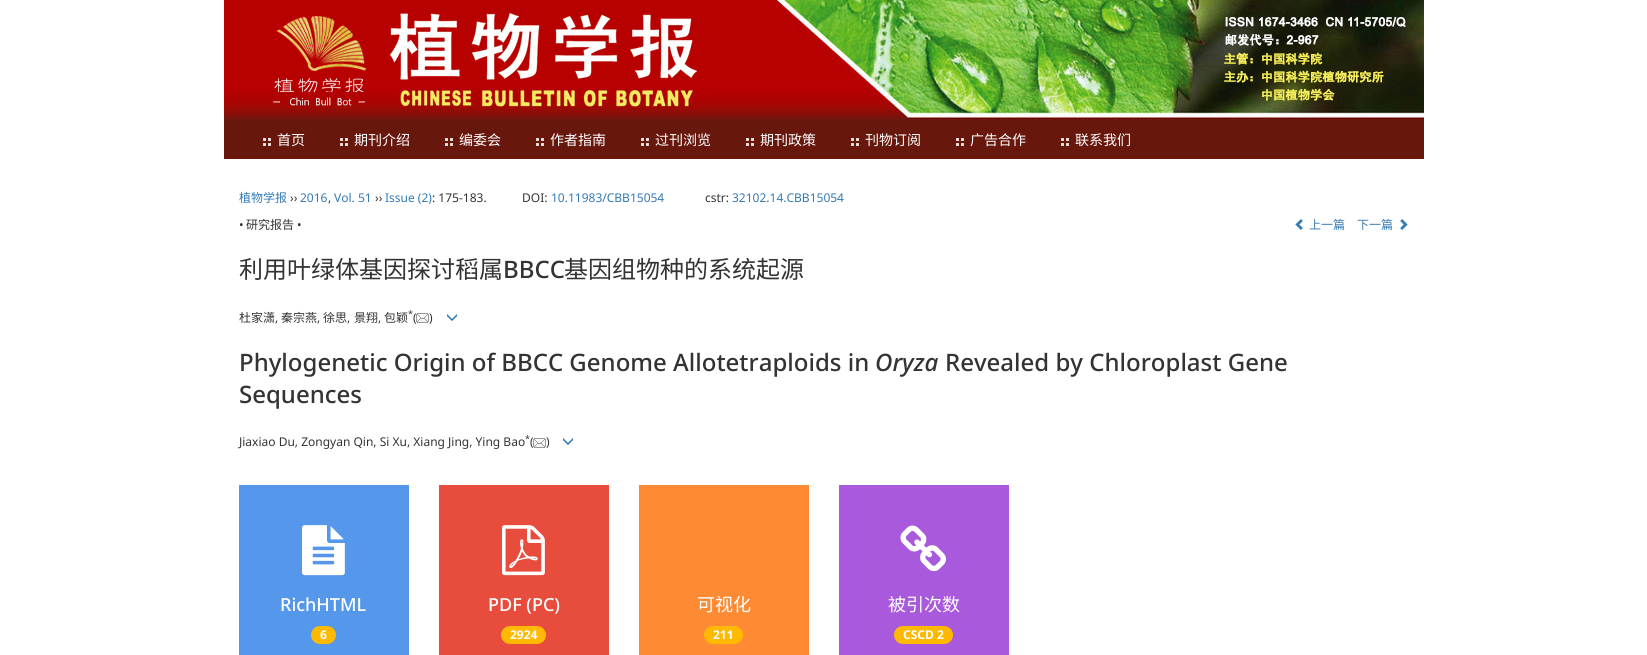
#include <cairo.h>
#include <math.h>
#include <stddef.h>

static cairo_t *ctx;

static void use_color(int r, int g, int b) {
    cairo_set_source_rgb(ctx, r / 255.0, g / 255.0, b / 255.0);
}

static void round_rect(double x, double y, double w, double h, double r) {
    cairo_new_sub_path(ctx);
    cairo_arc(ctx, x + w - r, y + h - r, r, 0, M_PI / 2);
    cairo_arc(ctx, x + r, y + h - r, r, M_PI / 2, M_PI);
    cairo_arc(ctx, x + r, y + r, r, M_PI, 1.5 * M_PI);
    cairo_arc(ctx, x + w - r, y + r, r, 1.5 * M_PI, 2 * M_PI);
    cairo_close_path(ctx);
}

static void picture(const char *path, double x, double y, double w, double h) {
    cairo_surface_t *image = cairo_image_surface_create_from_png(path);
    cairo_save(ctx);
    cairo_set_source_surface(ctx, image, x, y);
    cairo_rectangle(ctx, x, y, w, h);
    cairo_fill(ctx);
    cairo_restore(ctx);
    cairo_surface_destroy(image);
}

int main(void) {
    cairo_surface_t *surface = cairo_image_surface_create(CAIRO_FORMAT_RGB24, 1647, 655);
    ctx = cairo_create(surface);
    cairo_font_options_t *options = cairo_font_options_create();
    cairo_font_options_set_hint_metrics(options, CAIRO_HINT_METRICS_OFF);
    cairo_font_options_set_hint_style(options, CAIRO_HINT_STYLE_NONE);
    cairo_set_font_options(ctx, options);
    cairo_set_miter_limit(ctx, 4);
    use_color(255, 255, 255);
    cairo_paint(ctx);
    picture("img1.png", 224, 0, 1200, 123);
    use_color(103, 23, 12);
    cairo_rectangle(ctx, 224, 123, 1200, 36);
    cairo_fill(ctx);
    picture("img2.png", 263, 138, 8, 8);
    cairo_select_font_face(ctx, "Noto Sans CJK SC", CAIRO_FONT_SLANT_NORMAL, CAIRO_FONT_WEIGHT_NORMAL);
    cairo_set_font_size(ctx, 14);
    use_color(255, 255, 255);
    cairo_move_to(ctx, 277, 145);
    cairo_show_text(ctx, "首页");
    picture("img2.png", 340, 138, 8, 8);
    cairo_move_to(ctx, 354, 145);
    cairo_show_text(ctx, "期刊介绍");
    picture("img2.png", 445, 138, 8, 8);
    cairo_move_to(ctx, 459, 145);
    cairo_show_text(ctx, "编委会");
    picture("img2.png", 536, 138, 8, 8);
    cairo_move_to(ctx, 550, 145);
    cairo_show_text(ctx, "作者指南");
    picture("img2.png", 641, 138, 8, 8);
    cairo_move_to(ctx, 655, 145);
    cairo_show_text(ctx, "过刊浏览");
    picture("img2.png", 746, 138, 8, 8);
    cairo_move_to(ctx, 760, 145);
    cairo_show_text(ctx, "期刊政策");
    picture("img2.png", 851, 138, 8, 8);
    cairo_move_to(ctx, 865, 145);
    cairo_show_text(ctx, "刊物订阅");
    picture("img2.png", 956, 138, 8, 8);
    cairo_move_to(ctx, 970, 145);
    cairo_show_text(ctx, "广告合作");
    picture("img2.png", 1061, 138, 8, 8);
    cairo_move_to(ctx, 1075, 145);
    cairo_show_text(ctx, "联系我们");
    cairo_set_font_size(ctx, 12);
    use_color(51, 122, 183);
    cairo_move_to(ctx, 239, 202);
    cairo_show_text(ctx, "植物学报");
    cairo_select_font_face(ctx, "Noto Sans", CAIRO_FONT_SLANT_NORMAL, CAIRO_FONT_WEIGHT_NORMAL);
    use_color(51, 51, 51);
    cairo_move_to(ctx, 290, 202);
    cairo_show_text(ctx, "››");
    use_color(51, 122, 183);
    cairo_move_to(ctx, 300, 202);
    cairo_show_text(ctx, "2016");
    use_color(51, 51, 51);
    cairo_move_to(ctx, 328, 202);
    cairo_show_text(ctx, ",");
    use_color(51, 122, 183);
    cairo_move_to(ctx, 334, 202);
    cairo_show_text(ctx, "Vol. 51");
    use_color(51, 51, 51);
    cairo_move_to(ctx, 375, 202);
    cairo_show_text(ctx, "››");
    use_color(51, 122, 183);
    cairo_move_to(ctx, 385, 202);
    cairo_show_text(ctx, "Issue (2)");
    use_color(51, 51, 51);
    cairo_move_to(ctx, 432, 202);
    cairo_show_text(ctx, ": 175-183.");
    cairo_move_to(ctx, 522, 202);
    cairo_show_text(ctx, "DOI:");
    use_color(51, 122, 183);
    cairo_move_to(ctx, 551, 202);
    cairo_show_text(ctx, "10.11983/CBB15054");
    use_color(51, 51, 51);
    cairo_move_to(ctx, 705, 202);
    cairo_show_text(ctx, "cstr:");
    use_color(51, 122, 183);
    cairo_move_to(ctx, 732, 202);
    cairo_show_text(ctx, "32102.14.CBB15054");
    use_color(51, 51, 51);
    cairo_move_to(ctx, 239, 229);
    cairo_show_text(ctx, "•");
    cairo_select_font_face(ctx, "Noto Sans CJK SC", CAIRO_FONT_SLANT_NORMAL, CAIRO_FONT_WEIGHT_NORMAL);
    cairo_move_to(ctx, 246, 229);
    cairo_show_text(ctx, "研究报告");
    cairo_select_font_face(ctx, "Noto Sans", CAIRO_FONT_SLANT_NORMAL, CAIRO_FONT_WEIGHT_NORMAL);
    cairo_move_to(ctx, 297, 229);
    cairo_show_text(ctx, "•");
    picture("img3.png", 1295, 219, 8, 11);
    cairo_select_font_face(ctx, "Noto Sans CJK SC", CAIRO_FONT_SLANT_NORMAL, CAIRO_FONT_WEIGHT_NORMAL);
    use_color(51, 122, 183);
    cairo_move_to(ctx, 1309, 229);
    cairo_show_text(ctx, "上一篇");
    cairo_move_to(ctx, 1357, 229);
    cairo_show_text(ctx, "下一篇");
    picture("img4.png", 1400, 219, 8, 11);
    cairo_set_font_size(ctx, 24);
    use_color(51, 51, 51);
    cairo_move_to(ctx, 239, 278);
    cairo_show_text(ctx, "利用叶绿体基因探讨稻属");
    cairo_select_font_face(ctx, "Noto Sans Medium", CAIRO_FONT_SLANT_NORMAL, CAIRO_FONT_WEIGHT_NORMAL);
    cairo_move_to(ctx, 503, 278);
    cairo_show_text(ctx, "BBCC");
    cairo_select_font_face(ctx, "Noto Sans CJK SC", CAIRO_FONT_SLANT_NORMAL, CAIRO_FONT_WEIGHT_NORMAL);
    cairo_move_to(ctx, 564, 278);
    cairo_show_text(ctx, "基因组物种的系统起源");
    cairo_set_font_size(ctx, 12);
    cairo_move_to(ctx, 239, 322);
    cairo_show_text(ctx, "杜家潇");
    cairo_move_to(ctx, 281, 322);
    cairo_show_text(ctx, "秦宗燕");
    cairo_move_to(ctx, 323, 322);
    cairo_show_text(ctx, "徐思");
    cairo_move_to(ctx, 354, 322);
    cairo_show_text(ctx, "景翔");
    cairo_move_to(ctx, 384, 322);
    cairo_show_text(ctx, "包颖");
    cairo_select_font_face(ctx, "Noto Sans", CAIRO_FONT_SLANT_NORMAL, CAIRO_FONT_WEIGHT_NORMAL);
    cairo_set_font_size(ctx, 9);
    cairo_move_to(ctx, 408, 317);
    cairo_show_text(ctx, "*");
    cairo_set_font_size(ctx, 12);
    cairo_move_to(ctx, 413, 322);
    cairo_show_text(ctx, "(");
    picture("img5.png", 416, 313, 13, 10);
    cairo_move_to(ctx, 429, 322);
    cairo_show_text(ctx, ")");
    picture("img6.png", 447, 314, 10, 7);
    cairo_move_to(ctx, 275, 322);
    cairo_show_text(ctx, ",");
    cairo_move_to(ctx, 317, 322);
    cairo_show_text(ctx, ",");
    cairo_move_to(ctx, 347, 322);
    cairo_show_text(ctx, ",");
    cairo_move_to(ctx, 378, 322);
    cairo_show_text(ctx, ",");
    cairo_select_font_face(ctx, "Noto Sans Medium", CAIRO_FONT_SLANT_NORMAL, CAIRO_FONT_WEIGHT_NORMAL);
    cairo_set_font_size(ctx, 24);
    cairo_move_to(ctx, 239, 371);
    cairo_show_text(ctx, "Phylogenetic Origin of BBCC Genome Allotetraploids in");
    cairo_select_font_face(ctx, "Noto Sans Medium", CAIRO_FONT_SLANT_ITALIC, CAIRO_FONT_WEIGHT_NORMAL);
    cairo_move_to(ctx, 875, 371);
    cairo_show_text(ctx, "Oryza");
    cairo_select_font_face(ctx, "Noto Sans Medium", CAIRO_FONT_SLANT_NORMAL, CAIRO_FONT_WEIGHT_NORMAL);
    cairo_move_to(ctx, 945, 371);
    cairo_show_text(ctx, "Revealed by Chloroplast Gene");
    cairo_move_to(ctx, 239, 403);
    cairo_show_text(ctx, "Sequences");
    cairo_select_font_face(ctx, "Noto Sans", CAIRO_FONT_SLANT_NORMAL, CAIRO_FONT_WEIGHT_NORMAL);
    cairo_set_font_size(ctx, 12);
    cairo_move_to(ctx, 239, 446);
    cairo_show_text(ctx, "Jiaxiao Du, Zongyan Qin, Si Xu, Xiang Jing, Ying Bao");
    cairo_set_font_size(ctx, 9);
    cairo_move_to(ctx, 525, 442);
    cairo_show_text(ctx, "*");
    cairo_set_font_size(ctx, 12);
    cairo_move_to(ctx, 530, 446);
    cairo_show_text(ctx, "(");
    picture("img5.png", 533, 438, 13, 10);
    cairo_move_to(ctx, 546, 446);
    cairo_show_text(ctx, ")");
    picture("img6.png", 563, 438, 10, 7);
    use_color(84, 151, 235);
    cairo_rectangle(ctx, 239, 485, 170, 170);
    cairo_fill(ctx);
    picture("img7.png", 302, 525, 43, 51);
    cairo_select_font_face(ctx, "Noto Sans Medium", CAIRO_FONT_SLANT_NORMAL, CAIRO_FONT_WEIGHT_NORMAL);
    cairo_set_font_size(ctx, 18);
    use_color(255, 255, 255);
    cairo_move_to(ctx, 280, 611);
    cairo_show_text(ctx, "RichHTML");
    use_color(255, 185, 0);
    round_rect(311, 626, 25, 18, 9);
    cairo_fill(ctx);
    cairo_select_font_face(ctx, "Noto Sans", CAIRO_FONT_SLANT_NORMAL, CAIRO_FONT_WEIGHT_BOLD);
    cairo_set_font_size(ctx, 12);
    use_color(255, 255, 255);
    cairo_move_to(ctx, 320, 639);
    cairo_show_text(ctx, "6");
    use_color(231, 76, 60);
    cairo_rectangle(ctx, 439, 485, 170, 170);
    cairo_fill(ctx);
    picture("img8.png", 502, 525, 43, 51);
    cairo_select_font_face(ctx, "Noto Sans Medium", CAIRO_FONT_SLANT_NORMAL, CAIRO_FONT_WEIGHT_NORMAL);
    cairo_set_font_size(ctx, 18);
    use_color(255, 255, 255);
    cairo_move_to(ctx, 488, 611);
    cairo_show_text(ctx, "PDF (PC)");
    use_color(255, 185, 0);
    round_rect(501, 626, 45, 18, 9);
    cairo_fill(ctx);
    cairo_select_font_face(ctx, "Noto Sans", CAIRO_FONT_SLANT_NORMAL, CAIRO_FONT_WEIGHT_BOLD);
    cairo_set_font_size(ctx, 12);
    use_color(255, 255, 255);
    cairo_move_to(ctx, 510, 639);
    cairo_show_text(ctx, "2924");
    use_color(255, 138, 52);
    cairo_rectangle(ctx, 639, 485, 170, 170);
    cairo_fill(ctx);
    cairo_select_font_face(ctx, "Noto Sans CJK SC", CAIRO_FONT_SLANT_NORMAL, CAIRO_FONT_WEIGHT_NORMAL);
    cairo_set_font_size(ctx, 18);
    use_color(255, 255, 255);
    cairo_move_to(ctx, 697, 611);
    cairo_show_text(ctx, "可视化");
    use_color(255, 185, 0);
    round_rect(704, 626, 39, 18, 9);
    cairo_fill(ctx);
    cairo_select_font_face(ctx, "Noto Sans", CAIRO_FONT_SLANT_NORMAL, CAIRO_FONT_WEIGHT_BOLD);
    cairo_set_font_size(ctx, 12);
    use_color(255, 255, 255);
    cairo_move_to(ctx, 713, 639);
    cairo_show_text(ctx, "211");
    use_color(169, 89, 219);
    cairo_rectangle(ctx, 839, 485, 170, 170);
    cairo_fill(ctx);
    picture("img9.png", 900, 525, 46, 47);
    cairo_select_font_face(ctx, "Noto Sans CJK SC", CAIRO_FONT_SLANT_NORMAL, CAIRO_FONT_WEIGHT_NORMAL);
    cairo_set_font_size(ctx, 18);
    use_color(255, 255, 255);
    cairo_move_to(ctx, 888, 611);
    cairo_show_text(ctx, "被引次数");
    use_color(255, 185, 0);
    round_rect(894, 626, 59, 18, 9);
    cairo_fill(ctx);
    cairo_select_font_face(ctx, "Noto Sans", CAIRO_FONT_SLANT_NORMAL, CAIRO_FONT_WEIGHT_BOLD);
    cairo_set_font_size(ctx, 12);
    use_color(255, 255, 255);
    cairo_move_to(ctx, 903, 639);
    cairo_show_text(ctx, "CSCD 2");
    cairo_surface_write_to_png(surface, "result.png");
    cairo_font_options_destroy(options);
    cairo_destroy(ctx);
    cairo_surface_destroy(surface);
    return 0;
}
